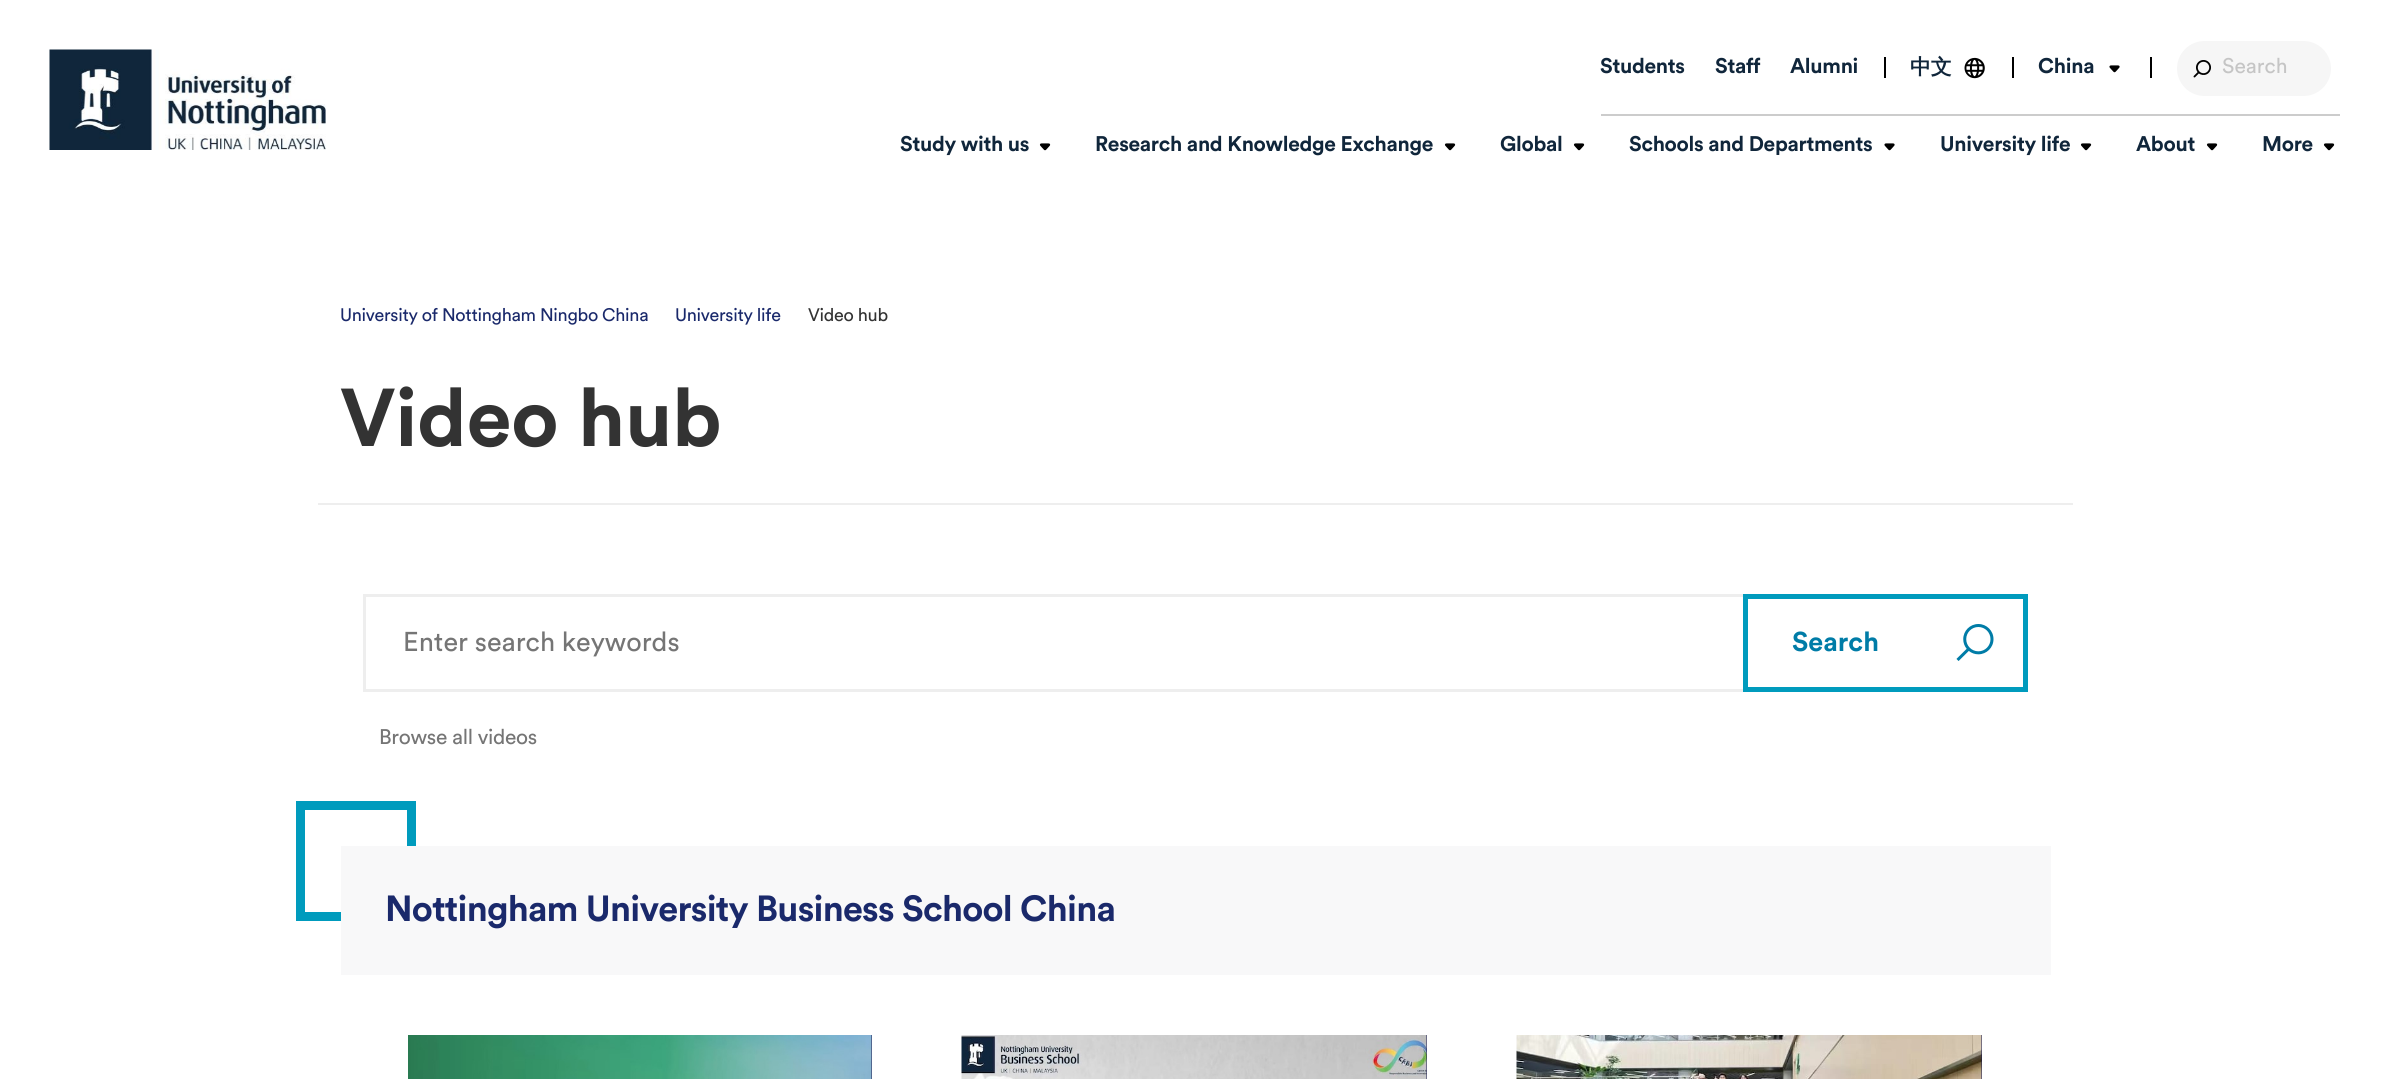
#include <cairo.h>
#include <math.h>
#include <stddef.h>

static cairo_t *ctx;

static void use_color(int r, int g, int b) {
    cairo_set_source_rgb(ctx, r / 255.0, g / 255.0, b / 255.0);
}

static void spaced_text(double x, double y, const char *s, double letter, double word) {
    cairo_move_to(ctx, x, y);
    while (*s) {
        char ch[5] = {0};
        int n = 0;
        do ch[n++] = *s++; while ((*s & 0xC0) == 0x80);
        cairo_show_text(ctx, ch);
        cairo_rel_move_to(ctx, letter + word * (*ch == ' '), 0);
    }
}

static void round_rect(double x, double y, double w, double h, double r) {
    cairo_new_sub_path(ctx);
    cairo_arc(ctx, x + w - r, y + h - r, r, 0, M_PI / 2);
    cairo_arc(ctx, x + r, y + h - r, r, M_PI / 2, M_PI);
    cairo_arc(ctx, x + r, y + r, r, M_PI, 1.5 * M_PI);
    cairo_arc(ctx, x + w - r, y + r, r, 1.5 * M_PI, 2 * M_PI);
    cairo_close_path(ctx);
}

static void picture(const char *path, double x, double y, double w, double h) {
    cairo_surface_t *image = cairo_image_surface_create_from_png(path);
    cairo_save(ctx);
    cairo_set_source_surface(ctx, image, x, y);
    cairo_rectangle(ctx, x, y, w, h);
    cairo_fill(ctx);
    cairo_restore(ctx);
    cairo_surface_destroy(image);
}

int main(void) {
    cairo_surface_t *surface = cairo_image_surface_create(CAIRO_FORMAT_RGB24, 2389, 1079);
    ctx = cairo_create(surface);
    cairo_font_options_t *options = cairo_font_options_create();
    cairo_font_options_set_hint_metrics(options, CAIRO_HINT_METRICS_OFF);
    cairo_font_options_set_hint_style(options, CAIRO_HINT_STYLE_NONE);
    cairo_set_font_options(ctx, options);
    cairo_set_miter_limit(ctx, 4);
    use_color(255, 255, 255);
    cairo_paint(ctx);
    picture("img1.png", 49, 49, 277, 101);
    use_color(204, 204, 204);
    cairo_rectangle(ctx, 1601, 114, 739, 2);
    cairo_fill(ctx);
    cairo_select_font_face(ctx, "Circular", CAIRO_FONT_SLANT_NORMAL, CAIRO_FONT_WEIGHT_BOLD);
    cairo_set_font_size(ctx, 21);
    use_color(16, 38, 59);
    spaced_text(1600, 73, "Students", -0.3, 0);
    spaced_text(1715, 73, "Staff", -0.3, 0);
    spaced_text(1790, 73, "Alumni", -0.3, 0);
    use_color(0, 0, 0);
    cairo_rectangle(ctx, 1884, 57, 2, 21);
    cairo_fill(ctx);
    cairo_select_font_face(ctx, "WenQuanYi Zen Hei", CAIRO_FONT_SLANT_NORMAL, CAIRO_FONT_WEIGHT_BOLD);
    use_color(16, 38, 59);
    spaced_text(1910, 74, "中文", -0.3, 0);
    picture("img2.png", 1964, 57, 21, 22);
    use_color(0, 0, 0);
    cairo_rectangle(ctx, 2012, 57, 2, 21);
    cairo_fill(ctx);
    cairo_select_font_face(ctx, "Circular", CAIRO_FONT_SLANT_NORMAL, CAIRO_FONT_WEIGHT_BOLD);
    use_color(16, 38, 59);
    spaced_text(2038, 73, "China", -0.3, 0);
    picture("img3.png", 2109, 65, 11, 8);
    use_color(0, 0, 0);
    cairo_rectangle(ctx, 2150, 57, 2, 21);
    cairo_fill(ctx);
    use_color(246, 246, 246);
    round_rect(2177, 41, 154, 55, 27.5);
    cairo_fill(ctx);
    picture("img4.png", 2193, 60, 18, 18);
    cairo_select_font_face(ctx, "Circular", CAIRO_FONT_SLANT_NORMAL, CAIRO_FONT_WEIGHT_NORMAL);
    use_color(197, 197, 197);
    cairo_move_to(ctx, 2222, 73);
    cairo_show_text(ctx, "Search");
    cairo_select_font_face(ctx, "Circular", CAIRO_FONT_SLANT_NORMAL, CAIRO_FONT_WEIGHT_BOLD);
    use_color(16, 38, 59);
    spaced_text(900, 151, "Study with us", -0.3, 0);
    picture("img5.png", 1039, 143, 12, 8);
    spaced_text(1095, 151, "Research and Knowledge Exchange", -0.3, 0);
    picture("img5.png", 1444, 143, 12, 8);
    spaced_text(1500, 151, "Global", -0.3, 0);
    picture("img5.png", 1573, 143, 12, 8);
    spaced_text(1629, 151, "Schools and Departments", -0.3, 0);
    picture("img3.png", 1884, 143, 11, 8);
    spaced_text(1940, 151, "University life", -0.3, 0);
    picture("img5.png", 2080, 143, 12, 8);
    spaced_text(2136, 151, "About", -0.3, 0);
    picture("img5.png", 2206, 143, 12, 8);
    spaced_text(2262, 151, "More", -0.3, 0);
    picture("img5.png", 2323, 143, 12, 8);
    cairo_select_font_face(ctx, "Circular", CAIRO_FONT_SLANT_NORMAL, CAIRO_FONT_WEIGHT_NORMAL);
    cairo_set_font_size(ctx, 18);
    use_color(26, 41, 107);
    spaced_text(340, 321, "University of Nottingham Ningbo China", -0.3, 0);
    spaced_text(675, 321, "University life", -0.3, 0);
    use_color(51, 51, 51);
    spaced_text(808, 321, "Video hub", -0.3, 0);
    use_color(238, 238, 238);
    cairo_rectangle(ctx, 318, 503, 1755, 2);
    cairo_fill(ctx);
    cairo_select_font_face(ctx, "Circular", CAIRO_FONT_SLANT_NORMAL, CAIRO_FONT_WEIGHT_BOLD);
    cairo_set_font_size(ctx, 81);
    use_color(51, 51, 51);
    spaced_text(340, 446, "Video hub", -0.3, 0);
    cairo_rectangle(ctx, 364.5, 595.5, 1662, 95);
    use_color(238, 238, 238);
    cairo_set_line_width(ctx, 3);
    cairo_stroke(ctx);
    cairo_select_font_face(ctx, "Circular", CAIRO_FONT_SLANT_NORMAL, CAIRO_FONT_WEIGHT_NORMAL);
    cairo_set_font_size(ctx, 27);
    use_color(117, 117, 117);
    cairo_move_to(ctx, 403, 651);
    cairo_show_text(ctx, "Enter search keywords");
    picture("img6.png", 1956, 624, 38, 37);
    cairo_rectangle(ctx, 1745.5, 596.5, 280, 93);
    use_color(0, 155, 189);
    cairo_set_line_width(ctx, 5);
    cairo_stroke(ctx);
    cairo_select_font_face(ctx, "Circular", CAIRO_FONT_SLANT_NORMAL, CAIRO_FONT_WEIGHT_BOLD);
    use_color(0, 124, 167);
    cairo_move_to(ctx, 1792, 651);
    cairo_show_text(ctx, "Search");
    cairo_select_font_face(ctx, "Circular", CAIRO_FONT_SLANT_NORMAL, CAIRO_FONT_WEIGHT_NORMAL);
    cairo_set_font_size(ctx, 21);
    use_color(117, 117, 117);
    spaced_text(379, 744, "Browse all videos", -0.3, 0);
    cairo_rectangle(ctx, 300.5, 805.5, 111, 111);
    use_color(0, 155, 189);
    cairo_set_line_width(ctx, 9);
    cairo_stroke(ctx);
    use_color(248, 248, 249);
    cairo_rectangle(ctx, 341, 846, 1710, 129);
    cairo_fill(ctx);
    cairo_select_font_face(ctx, "Circular", CAIRO_FONT_SLANT_NORMAL, CAIRO_FONT_WEIGHT_BOLD);
    cairo_set_font_size(ctx, 36);
    use_color(26, 41, 107);
    spaced_text(385, 921, "Nottingham University Business School China", -0.75, 0);
    use_color(24, 25, 79);
    cairo_rectangle(ctx, 871, 1035, 1, 44);
    cairo_fill(ctx);
    picture("img7.png", 408, 1035, 464, 44);
    cairo_rectangle(ctx, 1426, 1035, 1, 44);
    cairo_fill(ctx);
    picture("img8.png", 961, 1035, 466, 44);
    cairo_rectangle(ctx, 1981, 1035, 1, 44);
    cairo_fill(ctx);
    picture("img9.png", 1516, 1035, 466, 44);
    cairo_surface_write_to_png(surface, "result.png");
    cairo_font_options_destroy(options);
    cairo_destroy(ctx);
    cairo_surface_destroy(surface);
    return 0;
}
